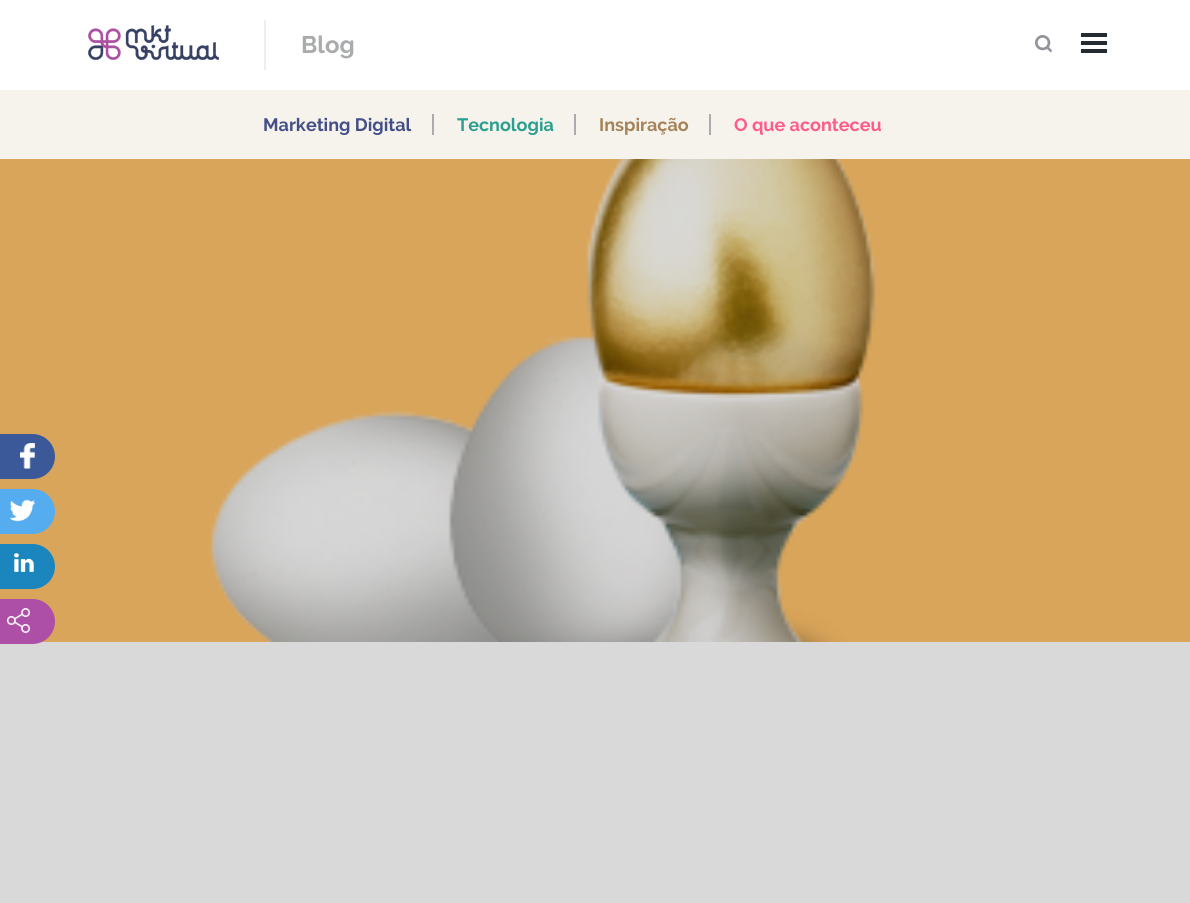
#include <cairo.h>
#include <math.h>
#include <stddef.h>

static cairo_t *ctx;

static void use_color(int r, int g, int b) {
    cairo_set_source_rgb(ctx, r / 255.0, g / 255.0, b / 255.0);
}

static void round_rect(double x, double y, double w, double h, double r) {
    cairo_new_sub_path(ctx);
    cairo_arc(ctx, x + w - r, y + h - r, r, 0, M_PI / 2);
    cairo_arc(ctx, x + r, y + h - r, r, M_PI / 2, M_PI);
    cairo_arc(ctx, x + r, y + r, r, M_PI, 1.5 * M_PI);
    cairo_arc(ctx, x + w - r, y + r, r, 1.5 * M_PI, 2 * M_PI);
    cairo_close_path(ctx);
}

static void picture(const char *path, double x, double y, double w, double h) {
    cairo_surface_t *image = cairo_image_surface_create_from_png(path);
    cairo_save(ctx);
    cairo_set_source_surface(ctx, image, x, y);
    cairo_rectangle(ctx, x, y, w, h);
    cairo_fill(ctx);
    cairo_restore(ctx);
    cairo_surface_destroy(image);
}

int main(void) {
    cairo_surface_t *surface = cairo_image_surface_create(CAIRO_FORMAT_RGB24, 1190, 903);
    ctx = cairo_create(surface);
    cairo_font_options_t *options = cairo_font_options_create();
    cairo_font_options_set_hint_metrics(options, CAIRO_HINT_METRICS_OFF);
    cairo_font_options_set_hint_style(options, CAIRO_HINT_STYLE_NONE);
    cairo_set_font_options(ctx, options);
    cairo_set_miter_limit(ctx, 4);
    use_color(255, 255, 255);
    cairo_paint(ctx);
    use_color(217, 217, 217);
    cairo_rectangle(ctx, 0, 642, 1190, 261);
    cairo_fill(ctx);
    use_color(238, 238, 238);
    cairo_rectangle(ctx, 264, 20, 2, 50);
    cairo_fill(ctx);
    picture("img1.png", 88, 25, 131, 35);
    cairo_select_font_face(ctx, "Raleway", CAIRO_FONT_SLANT_NORMAL, CAIRO_FONT_WEIGHT_BOLD);
    cairo_set_font_size(ctx, 24);
    use_color(169, 171, 173);
    cairo_move_to(ctx, 301, 53);
    cairo_show_text(ctx, "Blog");
    picture("img2.png", 1035, 35, 18, 18);
    use_color(36, 43, 51);
    cairo_rectangle(ctx, 1081, 33, 26, 4);
    cairo_fill(ctx);
    cairo_rectangle(ctx, 1081, 41, 26, 4);
    cairo_fill(ctx);
    cairo_rectangle(ctx, 1081, 49, 26, 4);
    cairo_fill(ctx);
    use_color(246, 243, 236);
    cairo_rectangle(ctx, 0, 90, 1190, 69);
    cairo_fill(ctx);
    use_color(169, 171, 173);
    cairo_rectangle(ctx, 432, 114, 2, 21);
    cairo_fill(ctx);
    cairo_set_font_size(ctx, 18);
    use_color(68, 79, 135);
    cairo_move_to(ctx, 263, 131);
    cairo_show_text(ctx, "Marketing Digital");
    use_color(169, 171, 173);
    cairo_rectangle(ctx, 574, 114, 2, 21);
    cairo_fill(ctx);
    use_color(42, 159, 143);
    cairo_move_to(ctx, 457, 131);
    cairo_show_text(ctx, "Tecnologia");
    use_color(169, 171, 173);
    cairo_rectangle(ctx, 709, 114, 2, 21);
    cairo_fill(ctx);
    use_color(165, 130, 88);
    cairo_move_to(ctx, 599, 131);
    cairo_show_text(ctx, "Inspiração");
    use_color(254, 91, 136);
    cairo_move_to(ctx, 734, 131);
    cairo_show_text(ctx, "O que aconteceu");
    picture("img3.png", 0, 159, 1190, 483);
    use_color(59, 89, 152);
    round_rect(-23, 434, 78, 45, 22.5);
    cairo_fill(ctx);
    picture("img4.png", 20, 443, 15, 26);
    use_color(85, 172, 238);
    round_rect(-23, 489, 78, 45, 22.5);
    cairo_fill(ctx);
    picture("img5.png", 10, 499, 25, 23);
    use_color(27, 134, 189);
    round_rect(-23, 544, 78, 45, 22.5);
    cairo_fill(ctx);
    picture("img6.png", 14, 553, 20, 19);
    use_color(173, 79, 167);
    round_rect(-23, 599, 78, 45, 22.5);
    cairo_fill(ctx);
    picture("img7.png", 7, 608, 23, 25);
    cairo_surface_write_to_png(surface, "result.png");
    cairo_font_options_destroy(options);
    cairo_destroy(ctx);
    cairo_surface_destroy(surface);
    return 0;
}
